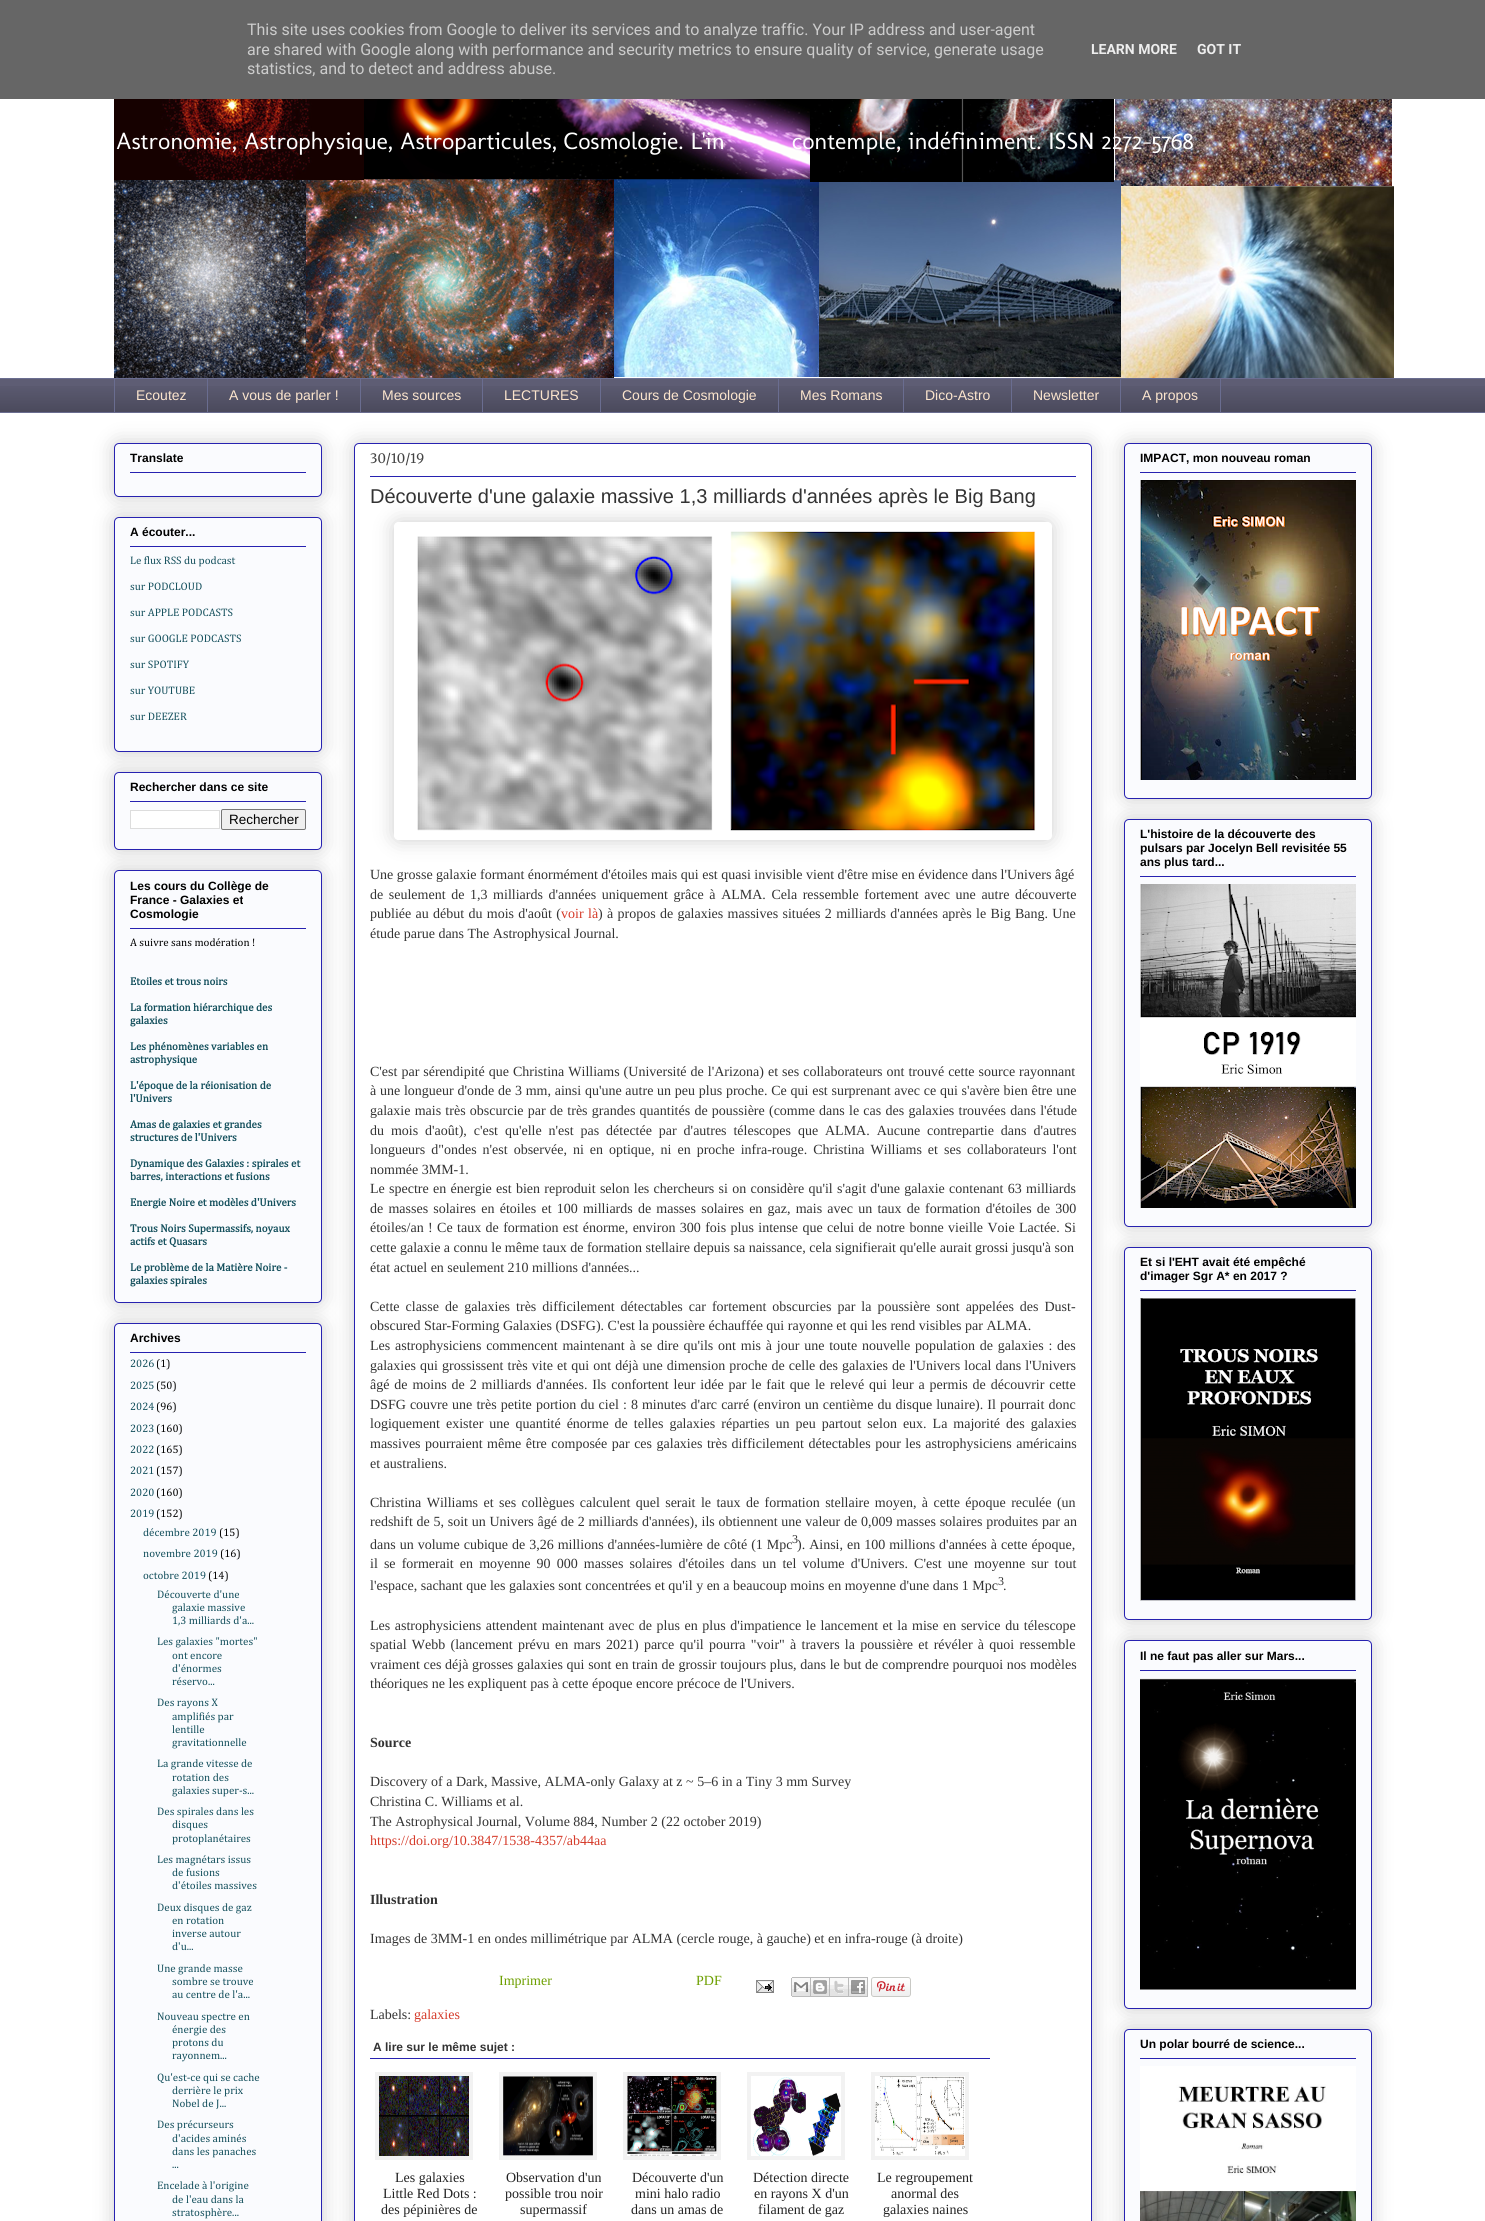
#include <cairo.h>
#include <math.h>
#include <stddef.h>

static cairo_t *ctx;

static void use_color(int r, int g, int b) {
    cairo_set_source_rgb(ctx, r / 255.0, g / 255.0, b / 255.0);
}

static void spaced_text(double x, double y, const char *s, double letter, double word) {
    cairo_move_to(ctx, x, y);
    while (*s) {
        char ch[5] = {0};
        int n = 0;
        do ch[n++] = *s++; while ((*s & 0xC0) == 0x80);
        cairo_show_text(ctx, ch);
        cairo_rel_move_to(ctx, letter + word * (*ch == ' '), 0);
    }
}

static void round_rect(double x, double y, double w, double h, double r) {
    cairo_new_sub_path(ctx);
    cairo_arc(ctx, x + w - r, y + h - r, r, 0, M_PI / 2);
    cairo_arc(ctx, x + r, y + h - r, r, M_PI / 2, M_PI);
    cairo_arc(ctx, x + r, y + r, r, M_PI, 1.5 * M_PI);
    cairo_arc(ctx, x + w - r, y + r, r, 1.5 * M_PI, 2 * M_PI);
    cairo_close_path(ctx);
}

static void shadow(double x, double y, double w, double h, double r, double blur, double alpha) {
    cairo_push_group_with_content(ctx, CAIRO_CONTENT_ALPHA);
    cairo_set_operator(ctx, CAIRO_OPERATOR_SOURCE);
    for (int i = 15; i >= -15 && fmin(w, h) + blur * i / 3 > 0; i -= 2) {
        double e = blur * i / 6;
        cairo_set_source_rgba(ctx, 0, 0, 0, alpha * erfc((i - 1) / 8.5) / 2);
        round_rect(x - e, y - e, w + 2 * e, h + 2 * e, fmax(0, fmin(r + e + blur * .6, fmin(w, h) / 2 + e)));
        cairo_fill(ctx);
    }
    cairo_pattern_t *soft = cairo_pop_group(ctx);
    cairo_mask(ctx, soft);
    cairo_pattern_destroy(soft);
}

static void picture(const char *path, double x, double y, double w, double h) {
    cairo_surface_t *image = cairo_image_surface_create_from_png(path);
    cairo_save(ctx);
    cairo_set_source_surface(ctx, image, x, y);
    cairo_rectangle(ctx, x, y, w, h);
    cairo_fill(ctx);
    cairo_restore(ctx);
    cairo_surface_destroy(image);
}

int main(void) {
    cairo_surface_t *surface = cairo_image_surface_create(CAIRO_FORMAT_RGB24, 1485, 2221);
    ctx = cairo_create(surface);
    cairo_font_options_t *options = cairo_font_options_create();
    cairo_font_options_set_hint_metrics(options, CAIRO_HINT_METRICS_OFF);
    cairo_font_options_set_hint_style(options, CAIRO_HINT_STYLE_NONE);
    cairo_set_font_options(ctx, options);
    cairo_set_miter_limit(ctx, 4);
    use_color(255, 255, 255);
    cairo_paint(ctx);
    use_color(102, 102, 102);
    cairo_rectangle(ctx, 0, 0, 1485, 99);
    cairo_fill(ctx);
    cairo_select_font_face(ctx, "Roboto", CAIRO_FONT_SLANT_NORMAL, CAIRO_FONT_WEIGHT_NORMAL);
    cairo_set_font_size(ctx, 16);
    use_color(204, 204, 204);
    cairo_move_to(ctx, 247, 35);
    cairo_show_text(ctx, "This site uses cookies from Google to deliver its services and to analyze traffic. Your IP address and user-agent");
    cairo_move_to(ctx, 247, 55);
    cairo_show_text(ctx, "are shared with Google along with performance and security metrics to ensure quality of service, generate usage");
    cairo_move_to(ctx, 247, 74);
    cairo_show_text(ctx, "statistics, and to detect and address abuse.");
    cairo_select_font_face(ctx, "Roboto", CAIRO_FONT_SLANT_NORMAL, CAIRO_FONT_WEIGHT_BOLD);
    cairo_set_font_size(ctx, 14);
    use_color(238, 238, 238);
    cairo_move_to(ctx, 1091, 54);
    cairo_show_text(ctx, "LEARN MORE");
    cairo_move_to(ctx, 1197, 54);
    cairo_show_text(ctx, "GOT IT");
    picture("img1.png", 114, 99, 1280, 279);
    cairo_select_font_face(ctx, "Molengo", CAIRO_FONT_SLANT_NORMAL, CAIRO_FONT_WEIGHT_NORMAL);
    cairo_set_font_size(ctx, 24);
    use_color(255, 255, 255);
    cairo_move_to(ctx, 116, 149);
    cairo_show_text(ctx, "Astronomie, Astrophysique, Astroparticules, Cosmologie. L'in");
    cairo_move_to(ctx, 792, 149);
    cairo_show_text(ctx, "contemple, indéfiniment. ISSN 2272-5768");
    use_color(94, 93, 116);
    cairo_rectangle(ctx, 0, 379, 1485, 33);
    cairo_fill(ctx);
    picture("img2.png", 0, 386, 1485, 26);
    use_color(106, 109, 144);
    cairo_rectangle(ctx, 0, 378, 1485, 1);
    cairo_fill(ctx);
    cairo_rectangle(ctx, 114, 378, 1, 35);
    cairo_fill(ctx);
    cairo_select_font_face(ctx, "Liberation Sans", CAIRO_FONT_SLANT_NORMAL, CAIRO_FONT_WEIGHT_NORMAL);
    cairo_set_font_size(ctx, 14);
    use_color(252, 229, 205);
    cairo_move_to(ctx, 136, 400);
    cairo_show_text(ctx, "Ecoutez");
    use_color(106, 109, 144);
    cairo_rectangle(ctx, 207, 378, 1, 35);
    cairo_fill(ctx);
    use_color(252, 229, 205);
    cairo_move_to(ctx, 229, 400);
    cairo_show_text(ctx, "A vous de parler !");
    use_color(106, 109, 144);
    cairo_rectangle(ctx, 360, 378, 1, 35);
    cairo_fill(ctx);
    use_color(252, 229, 205);
    cairo_move_to(ctx, 382, 400);
    cairo_show_text(ctx, "Mes sources");
    use_color(106, 109, 144);
    cairo_rectangle(ctx, 482, 378, 1, 35);
    cairo_fill(ctx);
    use_color(252, 229, 205);
    cairo_move_to(ctx, 504, 400);
    cairo_show_text(ctx, "LECTURES");
    use_color(106, 109, 144);
    cairo_rectangle(ctx, 600, 378, 1, 35);
    cairo_fill(ctx);
    use_color(252, 229, 205);
    cairo_move_to(ctx, 622, 400);
    cairo_show_text(ctx, "Cours de Cosmologie");
    use_color(106, 109, 144);
    cairo_rectangle(ctx, 778, 378, 1, 35);
    cairo_fill(ctx);
    use_color(252, 229, 205);
    cairo_move_to(ctx, 800, 400);
    cairo_show_text(ctx, "Mes Romans");
    use_color(106, 109, 144);
    cairo_rectangle(ctx, 903, 378, 1, 35);
    cairo_fill(ctx);
    use_color(252, 229, 205);
    cairo_move_to(ctx, 925, 400);
    cairo_show_text(ctx, "Dico-Astro");
    use_color(106, 109, 144);
    cairo_rectangle(ctx, 1011, 378, 1, 35);
    cairo_fill(ctx);
    use_color(252, 229, 205);
    cairo_move_to(ctx, 1033, 400);
    cairo_show_text(ctx, "Newsletter");
    cairo_rectangle(ctx, 1120.5, 378.5, 100, 34);
    use_color(106, 109, 144);
    cairo_set_line_width(ctx, 1);
    cairo_stroke(ctx);
    use_color(252, 229, 205);
    cairo_move_to(ctx, 1142, 400);
    cairo_show_text(ctx, "A propos");
    use_color(106, 109, 144);
    cairo_rectangle(ctx, 0, 412, 1485, 1);
    cairo_fill(ctx);
    use_color(0, 0, 0);
    shadow(114, 443, 208, 54, 5, 10, 0.2);
    use_color(250, 251, 254);
    round_rect(114.5, 443.5, 207, 53, 4.5);
    cairo_fill_preserve(ctx);
    use_color(39, 34, 177);
    cairo_stroke(ctx);
    cairo_select_font_face(ctx, "Liberation Sans", CAIRO_FONT_SLANT_NORMAL, CAIRO_FONT_WEIGHT_BOLD);
    cairo_set_font_size(ctx, 12);
    use_color(0, 0, 0);
    cairo_move_to(ctx, 130, 462);
    cairo_show_text(ctx, "Translate");
    use_color(39, 34, 177);
    cairo_rectangle(ctx, 130, 472, 176, 1);
    cairo_fill(ctx);
    use_color(0, 0, 0);
    shadow(114, 517, 208, 235, 5, 10, 0.2);
    use_color(250, 251, 254);
    round_rect(114.5, 517.5, 207, 234, 4.5);
    cairo_fill_preserve(ctx);
    use_color(39, 34, 177);
    cairo_stroke(ctx);
    use_color(0, 0, 0);
    cairo_move_to(ctx, 130, 536);
    cairo_show_text(ctx, "A écouter...");
    use_color(39, 34, 177);
    cairo_rectangle(ctx, 130, 546, 176, 1);
    cairo_fill(ctx);
    cairo_select_font_face(ctx, "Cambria", CAIRO_FONT_SLANT_NORMAL, CAIRO_FONT_WEIGHT_NORMAL);
    cairo_set_font_size(ctx, 11);
    use_color(19, 79, 92);
    cairo_move_to(ctx, 130, 564);
    cairo_show_text(ctx, "Le flux RSS du podcast");
    cairo_move_to(ctx, 130, 590);
    cairo_show_text(ctx, "sur PODCLOUD");
    cairo_move_to(ctx, 130, 616);
    cairo_show_text(ctx, "sur APPLE PODCASTS");
    cairo_move_to(ctx, 130, 642);
    cairo_show_text(ctx, "sur GOOGLE PODCASTS");
    cairo_move_to(ctx, 130, 668);
    cairo_show_text(ctx, "sur SPOTIFY");
    cairo_move_to(ctx, 130, 694);
    cairo_show_text(ctx, "sur YOUTUBE");
    cairo_move_to(ctx, 130, 720);
    cairo_show_text(ctx, "sur DEEZER");
    use_color(0, 0, 0);
    shadow(114, 772, 208, 78, 5, 10, 0.2);
    use_color(250, 251, 254);
    round_rect(114.5, 772.5, 207, 77, 4.5);
    cairo_fill_preserve(ctx);
    use_color(39, 34, 177);
    cairo_stroke(ctx);
    cairo_select_font_face(ctx, "Liberation Sans", CAIRO_FONT_SLANT_NORMAL, CAIRO_FONT_WEIGHT_BOLD);
    cairo_set_font_size(ctx, 12);
    use_color(0, 0, 0);
    cairo_move_to(ctx, 130, 791);
    cairo_show_text(ctx, "Rechercher dans ce site");
    use_color(39, 34, 177);
    cairo_rectangle(ctx, 130, 801, 176, 1);
    cairo_fill(ctx);
    use_color(255, 255, 255);
    cairo_rectangle(ctx, 130.5, 810.5, 89, 18);
    cairo_fill_preserve(ctx);
    use_color(221, 221, 221);
    cairo_stroke(ctx);
    use_color(239, 239, 239);
    round_rect(221.5, 809.5, 84, 20, 1.5);
    cairo_fill_preserve(ctx);
    use_color(118, 118, 118);
    cairo_stroke(ctx);
    cairo_select_font_face(ctx, "Liberation Sans", CAIRO_FONT_SLANT_NORMAL, CAIRO_FONT_WEIGHT_NORMAL);
    cairo_set_font_size(ctx, 13.5);
    use_color(0, 0, 0);
    cairo_move_to(ctx, 229, 824);
    cairo_show_text(ctx, "Rechercher");
    use_color(0, 0, 0);
    shadow(114, 870, 208, 433, 5, 10, 0.2);
    use_color(250, 251, 254);
    round_rect(114.5, 870.5, 207, 432, 4.5);
    cairo_fill_preserve(ctx);
    use_color(39, 34, 177);
    cairo_stroke(ctx);
    cairo_select_font_face(ctx, "Liberation Sans", CAIRO_FONT_SLANT_NORMAL, CAIRO_FONT_WEIGHT_BOLD);
    cairo_set_font_size(ctx, 12);
    use_color(0, 0, 0);
    cairo_move_to(ctx, 130, 890);
    cairo_show_text(ctx, "Les cours du Collège de");
    cairo_move_to(ctx, 130, 904);
    cairo_show_text(ctx, "France - Galaxies et");
    cairo_move_to(ctx, 130, 918);
    cairo_show_text(ctx, "Cosmologie");
    use_color(39, 34, 177);
    cairo_rectangle(ctx, 130, 928, 176, 1);
    cairo_fill(ctx);
    cairo_select_font_face(ctx, "Cambria", CAIRO_FONT_SLANT_NORMAL, CAIRO_FONT_WEIGHT_NORMAL);
    cairo_set_font_size(ctx, 11);
    use_color(0, 0, 0);
    cairo_move_to(ctx, 130, 946);
    cairo_show_text(ctx, "A suivre sans modération !");
    cairo_select_font_face(ctx, "Cambria", CAIRO_FONT_SLANT_NORMAL, CAIRO_FONT_WEIGHT_BOLD);
    use_color(19, 79, 92);
    cairo_move_to(ctx, 130, 985);
    cairo_show_text(ctx, "Etoiles et trous noirs");
    cairo_move_to(ctx, 130, 1011);
    cairo_show_text(ctx, "La formation hiérarchique des");
    cairo_move_to(ctx, 130, 1024);
    cairo_show_text(ctx, "galaxies");
    cairo_move_to(ctx, 130, 1050);
    cairo_show_text(ctx, "Les phénomènes variables en");
    cairo_move_to(ctx, 130, 1063);
    cairo_show_text(ctx, "astrophysique");
    cairo_move_to(ctx, 130, 1089);
    cairo_show_text(ctx, "L'époque de la réionisation de");
    cairo_move_to(ctx, 130, 1102);
    cairo_show_text(ctx, "l'Univers");
    cairo_move_to(ctx, 130, 1128);
    cairo_show_text(ctx, "Amas de galaxies et grandes");
    cairo_move_to(ctx, 130, 1141);
    cairo_show_text(ctx, "structures de l'Univers");
    cairo_move_to(ctx, 130, 1167);
    cairo_show_text(ctx, "Dynamique des Galaxies : spirales et");
    cairo_move_to(ctx, 130, 1180);
    cairo_show_text(ctx, "barres, interactions et fusions");
    cairo_move_to(ctx, 130, 1206);
    cairo_show_text(ctx, "Energie Noire et modèles d'Univers");
    cairo_move_to(ctx, 130, 1232);
    cairo_show_text(ctx, "Trous Noirs Supermassifs, noyaux");
    cairo_move_to(ctx, 130, 1245);
    cairo_show_text(ctx, "actifs et Quasars");
    cairo_move_to(ctx, 130, 1271);
    cairo_show_text(ctx, "Le problème de la Matière Noire -");
    cairo_move_to(ctx, 130, 1284);
    cairo_show_text(ctx, "galaxies spirales");
    use_color(0, 0, 0);
    shadow(114, 1323, 208, 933, 5, 10, 0.2);
    use_color(250, 251, 254);
    round_rect(114.5, 1323.5, 207, 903, 4.5);
    cairo_fill_preserve(ctx);
    use_color(39, 34, 177);
    cairo_stroke(ctx);
    cairo_select_font_face(ctx, "Liberation Sans", CAIRO_FONT_SLANT_NORMAL, CAIRO_FONT_WEIGHT_BOLD);
    cairo_set_font_size(ctx, 12);
    use_color(0, 0, 0);
    cairo_move_to(ctx, 130, 1342);
    cairo_show_text(ctx, "Archives");
    use_color(39, 34, 177);
    cairo_rectangle(ctx, 130, 1352, 176, 1);
    cairo_fill(ctx);
    cairo_select_font_face(ctx, "Cambria", CAIRO_FONT_SLANT_NORMAL, CAIRO_FONT_WEIGHT_NORMAL);
    cairo_set_font_size(ctx, 11);
    use_color(19, 79, 92);
    cairo_move_to(ctx, 130, 1367);
    cairo_show_text(ctx, "2026");
    use_color(0, 0, 0);
    cairo_move_to(ctx, 156, 1367);
    cairo_show_text(ctx, "(1)");
    use_color(19, 79, 92);
    cairo_move_to(ctx, 130, 1389);
    cairo_show_text(ctx, "2025");
    use_color(0, 0, 0);
    cairo_move_to(ctx, 156, 1389);
    cairo_show_text(ctx, "(50)");
    use_color(19, 79, 92);
    cairo_move_to(ctx, 130, 1410);
    cairo_show_text(ctx, "2024");
    use_color(0, 0, 0);
    cairo_move_to(ctx, 156, 1410);
    cairo_show_text(ctx, "(96)");
    use_color(19, 79, 92);
    cairo_move_to(ctx, 130, 1432);
    cairo_show_text(ctx, "2023");
    use_color(0, 0, 0);
    cairo_move_to(ctx, 156, 1432);
    cairo_show_text(ctx, "(160)");
    use_color(19, 79, 92);
    cairo_move_to(ctx, 130, 1453);
    cairo_show_text(ctx, "2022");
    use_color(0, 0, 0);
    cairo_move_to(ctx, 156, 1453);
    cairo_show_text(ctx, "(165)");
    use_color(19, 79, 92);
    cairo_move_to(ctx, 130, 1474);
    cairo_show_text(ctx, "2021");
    use_color(0, 0, 0);
    cairo_move_to(ctx, 156, 1474);
    cairo_show_text(ctx, "(157)");
    use_color(19, 79, 92);
    cairo_move_to(ctx, 130, 1496);
    cairo_show_text(ctx, "2020");
    use_color(0, 0, 0);
    cairo_move_to(ctx, 156, 1496);
    cairo_show_text(ctx, "(160)");
    use_color(19, 79, 92);
    cairo_move_to(ctx, 130, 1517);
    cairo_show_text(ctx, "2019");
    use_color(0, 0, 0);
    cairo_move_to(ctx, 156, 1517);
    cairo_show_text(ctx, "(152)");
    use_color(19, 79, 92);
    cairo_move_to(ctx, 143, 1536);
    cairo_show_text(ctx, "décembre 2019");
    use_color(0, 0, 0);
    cairo_move_to(ctx, 219, 1536);
    cairo_show_text(ctx, "(15)");
    use_color(19, 79, 92);
    cairo_move_to(ctx, 143, 1557);
    cairo_show_text(ctx, "novembre 2019");
    use_color(0, 0, 0);
    cairo_move_to(ctx, 220, 1557);
    cairo_show_text(ctx, "(16)");
    use_color(19, 79, 92);
    cairo_move_to(ctx, 143, 1579);
    cairo_show_text(ctx, "octobre 2019");
    use_color(0, 0, 0);
    cairo_move_to(ctx, 208, 1579);
    cairo_show_text(ctx, "(14)");
    use_color(19, 79, 92);
    cairo_move_to(ctx, 157, 1598);
    cairo_show_text(ctx, "Découverte d'une");
    cairo_move_to(ctx, 172, 1611);
    cairo_show_text(ctx, "galaxie massive");
    cairo_move_to(ctx, 172, 1624);
    cairo_show_text(ctx, "1,3 milliards d'a...");
    cairo_move_to(ctx, 157, 1645);
    cairo_show_text(ctx, "Les galaxies \"mortes\"");
    cairo_move_to(ctx, 172, 1659);
    cairo_show_text(ctx, "ont encore");
    cairo_move_to(ctx, 172, 1672);
    cairo_show_text(ctx, "d'énormes");
    cairo_move_to(ctx, 172, 1685);
    cairo_show_text(ctx, "réservo...");
    cairo_move_to(ctx, 157, 1706);
    cairo_show_text(ctx, "Des rayons X");
    cairo_move_to(ctx, 172, 1720);
    cairo_show_text(ctx, "amplifiés par");
    cairo_move_to(ctx, 172, 1733);
    cairo_show_text(ctx, "lentille");
    cairo_move_to(ctx, 172, 1746);
    cairo_show_text(ctx, "gravitationnelle");
    cairo_move_to(ctx, 157, 1767);
    cairo_show_text(ctx, "La grande vitesse de");
    cairo_move_to(ctx, 172, 1781);
    cairo_show_text(ctx, "rotation des");
    cairo_move_to(ctx, 172, 1794);
    cairo_show_text(ctx, "galaxies super-s...");
    cairo_move_to(ctx, 157, 1815);
    cairo_show_text(ctx, "Des spirales dans les");
    cairo_move_to(ctx, 172, 1828);
    cairo_show_text(ctx, "disques");
    cairo_move_to(ctx, 172, 1842);
    cairo_show_text(ctx, "protoplanétaires");
    cairo_move_to(ctx, 157, 1863);
    cairo_show_text(ctx, "Les magnétars issus");
    cairo_move_to(ctx, 172, 1876);
    cairo_show_text(ctx, "de fusions");
    cairo_move_to(ctx, 172, 1889);
    cairo_show_text(ctx, "d'étoiles massives");
    cairo_move_to(ctx, 157, 1911);
    cairo_show_text(ctx, "Deux disques de gaz");
    cairo_move_to(ctx, 172, 1924);
    cairo_show_text(ctx, "en rotation");
    cairo_move_to(ctx, 172, 1937);
    cairo_show_text(ctx, "inverse autour");
    cairo_move_to(ctx, 172, 1950);
    cairo_show_text(ctx, "d'u...");
    cairo_move_to(ctx, 157, 1972);
    cairo_show_text(ctx, "Une grande masse");
    cairo_move_to(ctx, 172, 1985);
    cairo_show_text(ctx, "sombre se trouve");
    cairo_move_to(ctx, 172, 1998);
    cairo_show_text(ctx, "au centre de l'a...");
    cairo_move_to(ctx, 157, 2020);
    cairo_show_text(ctx, "Nouveau spectre en");
    cairo_move_to(ctx, 172, 2033);
    cairo_show_text(ctx, "énergie des");
    cairo_move_to(ctx, 172, 2046);
    cairo_show_text(ctx, "protons du");
    cairo_move_to(ctx, 172, 2059);
    cairo_show_text(ctx, "rayonnem...");
    cairo_move_to(ctx, 157, 2081);
    cairo_show_text(ctx, "Qu'est-ce qui se cache");
    cairo_move_to(ctx, 172, 2094);
    cairo_show_text(ctx, "derrière le prix");
    cairo_move_to(ctx, 172, 2107);
    cairo_show_text(ctx, "Nobel de J...");
    cairo_move_to(ctx, 157, 2128);
    cairo_show_text(ctx, "Des précurseurs");
    cairo_move_to(ctx, 172, 2142);
    cairo_show_text(ctx, "d'acides aminés");
    cairo_move_to(ctx, 172, 2155);
    cairo_show_text(ctx, "dans les panaches");
    cairo_move_to(ctx, 172, 2168);
    cairo_show_text(ctx, "...");
    cairo_move_to(ctx, 157, 2189);
    cairo_show_text(ctx, "Encelade à l'origine");
    cairo_move_to(ctx, 172, 2203);
    cairo_show_text(ctx, "de l'eau dans la");
    cairo_move_to(ctx, 172, 2216);
    cairo_show_text(ctx, "stratosphère...");
    use_color(0, 0, 0);
    shadow(354, 443, 738, 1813, 5, 10, 0.2);
    use_color(255, 255, 255);
    round_rect(354.5, 443.5, 737, 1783, 4.5);
    cairo_fill_preserve(ctx);
    use_color(39, 34, 177);
    cairo_stroke(ctx);
    cairo_select_font_face(ctx, "Merriweather Light", CAIRO_FONT_SLANT_NORMAL, CAIRO_FONT_WEIGHT_NORMAL);
    cairo_set_font_size(ctx, 13);
    use_color(68, 68, 68);
    cairo_move_to(ctx, 370, 463);
    cairo_show_text(ctx, "30/10/19");
    use_color(39, 34, 177);
    cairo_rectangle(ctx, 370, 476, 706, 1);
    cairo_fill(ctx);
    cairo_select_font_face(ctx, "Arimo", CAIRO_FONT_SLANT_NORMAL, CAIRO_FONT_WEIGHT_NORMAL);
    cairo_set_font_size(ctx, 20);
    use_color(51, 51, 51);
    cairo_move_to(ctx, 370, 503);
    cairo_show_text(ctx, "Découverte d'une galaxie massive 1,3 milliards d'années après le Big Bang");
    cairo_save(ctx);
    cairo_set_fill_rule(ctx, CAIRO_FILL_RULE_EVEN_ODD);
    cairo_new_path(ctx);
    cairo_move_to(ctx, 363, 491);
    cairo_line_to(ctx, 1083, 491);
    cairo_line_to(ctx, 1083, 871);
    cairo_line_to(ctx, 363, 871);
    cairo_close_path(ctx);
    cairo_move_to(ctx, 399, 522);
    cairo_line_to(ctx, 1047, 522);
    cairo_curve_to(ctx, 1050, 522, 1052, 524, 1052, 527);
    cairo_line_to(ctx, 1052, 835);
    cairo_curve_to(ctx, 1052, 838, 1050, 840, 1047, 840);
    cairo_line_to(ctx, 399, 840);
    cairo_curve_to(ctx, 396, 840, 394, 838, 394, 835);
    cairo_line_to(ctx, 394, 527);
    cairo_curve_to(ctx, 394, 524, 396, 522, 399, 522);
    cairo_close_path(ctx);
    cairo_clip(ctx);
    use_color(0, 0, 0);
    shadow(394, 522, 658, 318, 5, 10, 0.2);
    cairo_restore(ctx);
    picture("img3.png", 417, 531, 619, 300);
    cairo_select_font_face(ctx, "Liberation Serif", CAIRO_FONT_SLANT_NORMAL, CAIRO_FONT_WEIGHT_NORMAL);
    cairo_set_font_size(ctx, 14);
    cairo_move_to(ctx, 370, 879);
    cairo_show_text(ctx, "Une grosse galaxie formant énormément d'étoiles mais qui est quasi invisible vient d'être mise en évidence dans l'Univers âgé");
    spaced_text(370, 899, "de seulement de 1,3 milliards d'années uniquement grâce à ALMA. Cela ressemble fortement avec une autre découverte", 0, 2.1);
    spaced_text(370, 918, "publiée au début du mois d'août (", 0, 0.8);
    use_color(213, 58, 41);
    spaced_text(561, 918, "voir là", 0, 1);
    use_color(51, 51, 51);
    spaced_text(598, 918, ") à propos de galaxies massives situées 2 milliards d'années après le Big Bang. Une", 0, 0.8);
    cairo_move_to(ctx, 370, 938);
    cairo_show_text(ctx, "étude parue dans The Astrophysical Journal.");
    spaced_text(370, 1076, "C'est par sérendipité que Christina Williams (Université de l'Arizona) et ses collaborateurs ont trouvé cette source rayonnant", 0, 0.5);
    spaced_text(370, 1095, "à une longueur d'onde de 3 mm, ainsi qu'une autre un peu plus proche. Ce qui est surprenant avec ce qui s'avère bien être une", 0, 0.25);
    spaced_text(370, 1115, "galaxie mais très obscurcie par de très grandes quantités de poussière (comme dans le cas des galaxies trouvées dans l'étude", 0, 0.75);
    spaced_text(370, 1135, "du mois d'août), c'est qu'elle n'est pas détectée par d'autres télescopes que ALMA. Aucune contrepartie dans d'autres", 0, 3.4);
    spaced_text(370, 1154, "longueurs d\"ondes n'est observée, ni en optique, ni en proche infra-rouge. Christina Williams et ses collaborateurs l'ont", 0, 2.5);
    cairo_move_to(ctx, 370, 1174);
    cairo_show_text(ctx, "nommée 3MM-1.");
    spaced_text(370, 1193, "Le spectre en énergie est bien reproduit selon les chercheurs si on considère qu'il s'agit d'une galaxie contenant 63 milliards", 0, 0.8);
    spaced_text(370, 1213, "de masses solaires en étoiles et 100 milliards de masses solaires en gaz, mais avec un taux de formation d'étoiles de 300", 0, 1.7);
    spaced_text(370, 1232, "étoiles/an ! Ce taux de formation est énorme, environ 300 fois plus intense que celui de notre bonne vieille Voie Lactée. Si", 0, 0.9);
    cairo_move_to(ctx, 370, 1252);
    cairo_show_text(ctx, "cette galaxie a connu le même taux de formation stellaire depuis sa naissance, cela signifierait qu'elle aurait grossi jusqu'à son");
    cairo_move_to(ctx, 370, 1272);
    cairo_show_text(ctx, "état actuel en seulement 210 millions d'années...");
    spaced_text(370, 1311, "Cette classe de galaxies très difficilement détectables car fortement obscurcies par la poussière sont appelées des Dust-", 0, 2.5);
    cairo_move_to(ctx, 370, 1330);
    cairo_show_text(ctx, "obscured Star-Forming Galaxies (DSFG). C'est la poussière échauffée qui rayonne et qui les rend visibles par ALMA.");
    spaced_text(370, 1350, "Les astrophysiciens commencent maintenant à se dire qu'ils ont mis à jour une toute nouvelle population de galaxies : des", 0, 1.3);
    spaced_text(370, 1370, "galaxies qui grossissent très vite et qui ont déjà une dimension proche de celle des galaxies de l'Univers local dans l'Univers", 0, 0.6);
    spaced_text(370, 1389, "âgé de moins de 2 milliards d'années. Ils confortent leur idée par le fait que le relevé qui leur a permis de découvrir cette", 0, 1.4);
    spaced_text(370, 1409, "DSFG couvre une très petite portion du ciel : 8 minutes d'arc carré (environ un centième du disque lunaire). Il pourrait donc", 0, 0.6);
    spaced_text(370, 1428, "logiquement exister une quantité énorme de telles galaxies réparties un peu partout selon eux. La majorité des galaxies", 0, 2.5);
    spaced_text(370, 1448, "massives pourraient même être composée par ces galaxies très difficilement détectables pour les astrophysiciens américains", 0, 1);
    cairo_move_to(ctx, 370, 1468);
    cairo_show_text(ctx, "et australiens.");
    spaced_text(370, 1507, "Christina Williams et ses collègues calculent quel serait le taux de formation stellaire moyen, à cette époque reculée (un", 0, 1.9);
    spaced_text(370, 1526, "redshift de 5, soit un Univers âgé de 2 milliards d'années), ils obtiennent une valeur de 0,009 masses solaires produites par an", 0, 0.25);
    spaced_text(370, 1549, "dans un volume cubique de 3,26 millions d'années-lumière de côté (1 Mpc", 0, 0.5);
    cairo_set_font_size(ctx, 12);
    cairo_move_to(ctx, 792, 1543);
    cairo_show_text(ctx, "3");
    cairo_set_font_size(ctx, 14);
    spaced_text(797, 1549, "). Ainsi, en 100 millions d'années à cette époque,", 0, 0.5);
    spaced_text(370, 1568, "il se formerait en moyenne 90 000 masses solaires d'étoiles dans un tel volume d'Univers. C'est une moyenne sur tout", 0, 2.6);
    cairo_move_to(ctx, 370, 1590);
    cairo_show_text(ctx, "l'espace, sachant que les galaxies sont concentrées et qu'il y en a beaucoup moins en moyenne d'une dans 1 Mpc");
    cairo_set_font_size(ctx, 12);
    cairo_move_to(ctx, 998, 1585);
    cairo_show_text(ctx, "3");
    cairo_set_font_size(ctx, 14);
    cairo_move_to(ctx, 1003, 1590);
    cairo_show_text(ctx, ".");
    spaced_text(370, 1630, "Les astrophysiciens attendent maintenant avec de plus en plus d'impatience le lancement et la mise en service du télescope", 0, 1.1);
    spaced_text(370, 1649, "spatial Webb (lancement prévu en mars 2021) parce qu'il pourra \"voir\" à travers la poussière et révéler à quoi ressemble", 0, 1.75);
    spaced_text(370, 1669, "vraiment ces déjà grosses galaxies qui sont en train de grossir toujours plus, dans le but de comprendre pourquoi nos modèles", 0, 0.2);
    cairo_move_to(ctx, 370, 1688);
    cairo_show_text(ctx, "théoriques ne les expliquent pas à cette époque encore précoce de l'Univers.");
    cairo_select_font_face(ctx, "Liberation Serif", CAIRO_FONT_SLANT_NORMAL, CAIRO_FONT_WEIGHT_BOLD);
    cairo_move_to(ctx, 370, 1747);
    cairo_show_text(ctx, "Source");
    cairo_select_font_face(ctx, "Liberation Serif", CAIRO_FONT_SLANT_NORMAL, CAIRO_FONT_WEIGHT_NORMAL);
    cairo_move_to(ctx, 370, 1786);
    cairo_show_text(ctx, "Discovery of a Dark, Massive, ALMA-only Galaxy at z ~ 5–6 in a Tiny 3 mm Survey");
    cairo_move_to(ctx, 370, 1806);
    cairo_show_text(ctx, "Christina C. Williams et al.");
    cairo_move_to(ctx, 370, 1826);
    cairo_show_text(ctx, "The Astrophysical Journal, Volume 884, Number 2 (22 october 2019)");
    use_color(213, 58, 41);
    cairo_move_to(ctx, 370, 1845);
    cairo_show_text(ctx, "https://doi.org/10.3847/1538-4357/ab44aa");
    cairo_select_font_face(ctx, "Liberation Serif", CAIRO_FONT_SLANT_NORMAL, CAIRO_FONT_WEIGHT_BOLD);
    use_color(51, 51, 51);
    cairo_move_to(ctx, 370, 1904);
    cairo_show_text(ctx, "Illustration");
    cairo_select_font_face(ctx, "Liberation Serif", CAIRO_FONT_SLANT_NORMAL, CAIRO_FONT_WEIGHT_NORMAL);
    cairo_move_to(ctx, 370, 1943);
    cairo_show_text(ctx, "Images de 3MM-1 en ondes millimétrique par ALMA (cercle rouge, à gauche) et en infra-rouge (à droite)");
    use_color(109, 159, 0);
    cairo_move_to(ctx, 499, 1985);
    cairo_show_text(ctx, "Imprimer");
    cairo_move_to(ctx, 696, 1985);
    cairo_show_text(ctx, "PDF");
    picture("img4.png", 756, 1980, 18, 13);
    picture("img5.png", 791, 1977, 20, 20);
    picture("img6.png", 811, 1977, 19, 20);
    picture("img7.png", 830, 1977, 19, 20);
    picture("img8.png", 849, 1977, 19, 20);
    picture("img9.png", 871, 1977, 40, 20);
    use_color(51, 51, 51);
    cairo_move_to(ctx, 370, 2019);
    cairo_show_text(ctx, "Labels:");
    use_color(213, 58, 41);
    cairo_move_to(ctx, 414, 2019);
    cairo_show_text(ctx, "galaxies");
    cairo_select_font_face(ctx, "Liberation Sans", CAIRO_FONT_SLANT_NORMAL, CAIRO_FONT_WEIGHT_BOLD);
    cairo_set_font_size(ctx, 12);
    use_color(51, 51, 51);
    cairo_move_to(ctx, 373, 2051);
    cairo_show_text(ctx, "A lire sur le même sujet :");
    use_color(39, 34, 177);
    cairo_rectangle(ctx, 370, 2058, 620, 1);
    cairo_fill(ctx);
    cairo_rectangle(ctx, 377, 2074, 94, 84);
    use_color(242, 242, 242);
    cairo_set_line_width(ctx, 4);
    cairo_stroke(ctx);
    picture("img10.png", 379, 2076, 90, 80);
    cairo_select_font_face(ctx, "Liberation Serif", CAIRO_FONT_SLANT_NORMAL, CAIRO_FONT_WEIGHT_NORMAL);
    cairo_set_font_size(ctx, 14);
    use_color(34, 34, 34);
    cairo_move_to(ctx, 395, 2182);
    cairo_show_text(ctx, "Les galaxies");
    cairo_move_to(ctx, 383, 2198);
    cairo_show_text(ctx, "Little Red Dots :");
    cairo_move_to(ctx, 381, 2214);
    cairo_show_text(ctx, "des pépinières de");
    cairo_rectangle(ctx, 501, 2074, 94, 84);
    use_color(242, 242, 242);
    cairo_stroke(ctx);
    picture("img11.png", 503, 2076, 90, 80);
    use_color(34, 34, 34);
    cairo_move_to(ctx, 506, 2182);
    cairo_show_text(ctx, "Observation d'un");
    cairo_move_to(ctx, 505, 2198);
    cairo_show_text(ctx, "possible trou noir");
    cairo_move_to(ctx, 520, 2214);
    cairo_show_text(ctx, "supermassif");
    cairo_rectangle(ctx, 625, 2074, 94, 84);
    use_color(242, 242, 242);
    cairo_stroke(ctx);
    picture("img12.png", 627, 2076, 90, 80);
    use_color(34, 34, 34);
    cairo_move_to(ctx, 632, 2182);
    cairo_show_text(ctx, "Découverte d'un");
    cairo_move_to(ctx, 635, 2198);
    cairo_show_text(ctx, "mini halo radio");
    cairo_move_to(ctx, 631, 2214);
    cairo_show_text(ctx, "dans un amas de");
    cairo_rectangle(ctx, 749, 2074, 94, 84);
    use_color(242, 242, 242);
    cairo_stroke(ctx);
    picture("img13.png", 753, 2077, 88, 79);
    use_color(34, 34, 34);
    cairo_move_to(ctx, 753, 2182);
    cairo_show_text(ctx, "Détection directe");
    cairo_move_to(ctx, 754, 2198);
    cairo_show_text(ctx, "en rayons X d'un");
    cairo_move_to(ctx, 758, 2214);
    cairo_show_text(ctx, "filament de gaz");
    cairo_rectangle(ctx, 873, 2074, 94, 84);
    use_color(242, 242, 242);
    cairo_stroke(ctx);
    picture("img14.png", 875, 2076, 90, 80);
    use_color(34, 34, 34);
    cairo_move_to(ctx, 877, 2182);
    cairo_show_text(ctx, "Le regroupement");
    cairo_move_to(ctx, 891, 2198);
    cairo_show_text(ctx, "anormal des");
    cairo_move_to(ctx, 883, 2214);
    cairo_show_text(ctx, "galaxies naines");
    use_color(0, 0, 0);
    shadow(1124, 443, 248, 356, 5, 10, 0.2);
    use_color(250, 251, 254);
    round_rect(1124.5, 443.5, 247, 355, 4.5);
    cairo_fill_preserve(ctx);
    use_color(39, 34, 177);
    cairo_set_line_width(ctx, 1);
    cairo_stroke(ctx);
    cairo_select_font_face(ctx, "Liberation Sans", CAIRO_FONT_SLANT_NORMAL, CAIRO_FONT_WEIGHT_BOLD);
    cairo_set_font_size(ctx, 12);
    use_color(0, 0, 0);
    cairo_move_to(ctx, 1140, 462);
    cairo_show_text(ctx, "IMPACT, mon nouveau roman");
    use_color(39, 34, 177);
    cairo_rectangle(ctx, 1140, 472, 216, 1);
    cairo_fill(ctx);
    picture("img15.png", 1140, 480, 216, 300);
    use_color(0, 0, 0);
    shadow(1124, 819, 248, 408, 5, 10, 0.2);
    use_color(250, 251, 254);
    round_rect(1124.5, 819.5, 247, 407, 4.5);
    cairo_fill_preserve(ctx);
    use_color(39, 34, 177);
    cairo_stroke(ctx);
    use_color(0, 0, 0);
    cairo_move_to(ctx, 1140, 838);
    cairo_show_text(ctx, "L'histoire de la découverte des");
    cairo_move_to(ctx, 1140, 852);
    cairo_show_text(ctx, "pulsars par Jocelyn Bell revisitée 55");
    cairo_move_to(ctx, 1140, 866);
    cairo_show_text(ctx, "ans plus tard...");
    use_color(39, 34, 177);
    cairo_rectangle(ctx, 1140, 876, 216, 1);
    cairo_fill(ctx);
    picture("img16.png", 1140, 884, 216, 324);
    use_color(0, 0, 0);
    shadow(1124, 1247, 248, 373, 5, 10, 0.2);
    use_color(250, 251, 254);
    round_rect(1124.5, 1247.5, 247, 372, 4.5);
    cairo_fill_preserve(ctx);
    use_color(39, 34, 177);
    cairo_stroke(ctx);
    use_color(0, 0, 0);
    cairo_move_to(ctx, 1140, 1266);
    cairo_show_text(ctx, "Et si l'EHT avait été empêché");
    cairo_move_to(ctx, 1140, 1280);
    cairo_show_text(ctx, "d'imager Sgr A* en 2017 ?");
    use_color(39, 34, 177);
    cairo_rectangle(ctx, 1140, 1290, 216, 1);
    cairo_fill(ctx);
    picture("img17.png", 1140, 1298, 216, 303);
    use_color(0, 0, 0);
    shadow(1124, 1640, 248, 369, 5, 10, 0.2);
    use_color(250, 251, 254);
    round_rect(1124.5, 1640.5, 247, 368, 4.5);
    cairo_fill_preserve(ctx);
    use_color(39, 34, 177);
    cairo_stroke(ctx);
    use_color(0, 0, 0);
    cairo_move_to(ctx, 1140, 1660);
    cairo_show_text(ctx, "Il ne faut pas aller sur Mars...");
    use_color(39, 34, 177);
    cairo_rectangle(ctx, 1140, 1670, 216, 1);
    cairo_fill(ctx);
    picture("img18.png", 1140, 1678, 216, 312);
    use_color(0, 0, 0);
    shadow(1124, 2029, 248, 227, 5, 10, 0.2);
    use_color(250, 251, 254);
    round_rect(1124.5, 2029.5, 247, 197, 4.5);
    cairo_fill_preserve(ctx);
    use_color(39, 34, 177);
    cairo_stroke(ctx);
    use_color(0, 0, 0);
    cairo_move_to(ctx, 1140, 2048);
    cairo_show_text(ctx, "Un polar bourré de science...");
    use_color(39, 34, 177);
    cairo_rectangle(ctx, 1140, 2058, 216, 1);
    cairo_fill(ctx);
    picture("img19.png", 1140, 2066, 216, 155);
    cairo_surface_write_to_png(surface, "result.png");
    cairo_font_options_destroy(options);
    cairo_destroy(ctx);
    cairo_surface_destroy(surface);
    return 0;
}
